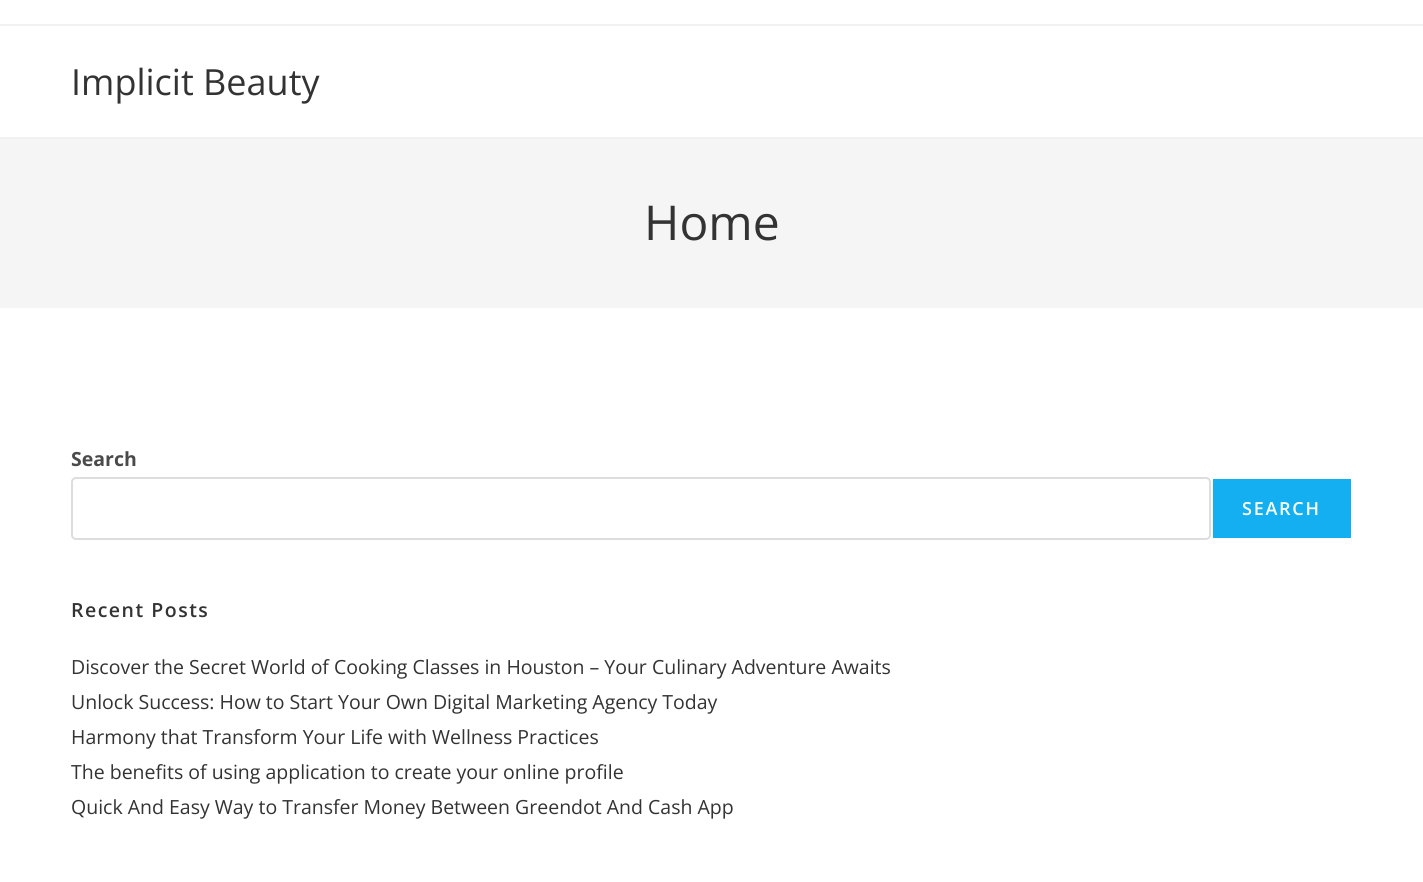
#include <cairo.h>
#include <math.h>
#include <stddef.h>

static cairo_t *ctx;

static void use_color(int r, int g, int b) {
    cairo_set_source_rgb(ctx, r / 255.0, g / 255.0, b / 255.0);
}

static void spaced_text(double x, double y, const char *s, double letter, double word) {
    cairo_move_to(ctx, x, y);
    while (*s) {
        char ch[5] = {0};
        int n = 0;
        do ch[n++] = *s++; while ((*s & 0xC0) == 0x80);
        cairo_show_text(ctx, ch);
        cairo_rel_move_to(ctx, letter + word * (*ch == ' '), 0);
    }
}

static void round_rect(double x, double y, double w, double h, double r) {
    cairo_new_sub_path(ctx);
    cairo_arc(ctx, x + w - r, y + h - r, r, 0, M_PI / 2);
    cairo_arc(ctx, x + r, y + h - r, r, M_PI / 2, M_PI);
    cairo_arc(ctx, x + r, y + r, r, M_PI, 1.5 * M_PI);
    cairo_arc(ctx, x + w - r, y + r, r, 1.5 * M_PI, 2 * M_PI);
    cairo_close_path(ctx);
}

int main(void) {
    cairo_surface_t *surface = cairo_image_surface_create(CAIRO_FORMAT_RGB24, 1423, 882);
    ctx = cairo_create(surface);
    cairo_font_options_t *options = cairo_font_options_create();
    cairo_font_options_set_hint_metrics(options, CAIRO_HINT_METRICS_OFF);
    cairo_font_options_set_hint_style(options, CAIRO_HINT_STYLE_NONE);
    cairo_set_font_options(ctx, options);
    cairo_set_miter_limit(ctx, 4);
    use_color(255, 255, 255);
    cairo_paint(ctx);
    use_color(241, 241, 241);
    cairo_rectangle(ctx, 0, 24, 1423, 2);
    cairo_fill(ctx);
    cairo_rectangle(ctx, 0, 137, 1423, 2);
    cairo_fill(ctx);
    cairo_select_font_face(ctx, "Open Sans", CAIRO_FONT_SLANT_NORMAL, CAIRO_FONT_WEIGHT_NORMAL);
    cairo_set_font_size(ctx, 36);
    use_color(51, 51, 51);
    cairo_move_to(ctx, 71, 95);
    cairo_show_text(ctx, "Implicit Beauty");
    use_color(245, 245, 245);
    cairo_rectangle(ctx, 0, 139, 1423, 169);
    cairo_fill(ctx);
    cairo_set_font_size(ctx, 48);
    use_color(51, 51, 51);
    cairo_move_to(ctx, 644, 240);
    cairo_show_text(ctx, "Home");
    cairo_select_font_face(ctx, "Open Sans", CAIRO_FONT_SLANT_NORMAL, CAIRO_FONT_WEIGHT_BOLD);
    cairo_set_font_size(ctx, 19.5);
    use_color(74, 74, 74);
    cairo_move_to(ctx, 71, 466);
    cairo_show_text(ctx, "Search");
    round_rect(72, 478, 1138, 61, 4);
    use_color(221, 221, 221);
    cairo_stroke(ctx);
    use_color(19, 175, 240);
    cairo_rectangle(ctx, 1213, 479, 138, 59);
    cairo_fill(ctx);
    cairo_select_font_face(ctx, "Open Sans SemiBold", CAIRO_FONT_SLANT_NORMAL, CAIRO_FONT_WEIGHT_NORMAL);
    cairo_set_font_size(ctx, 18);
    use_color(255, 255, 255);
    spaced_text(1242, 515, "SEARCH", 1.75, 0);
    cairo_set_font_size(ctx, 19.5);
    use_color(51, 51, 51);
    spaced_text(71, 617, "Recent Posts", 1.5, 0);
    cairo_select_font_face(ctx, "Open Sans", CAIRO_FONT_SLANT_NORMAL, CAIRO_FONT_WEIGHT_NORMAL);
    cairo_move_to(ctx, 71, 674);
    cairo_show_text(ctx, "Discover the Secret World of Cooking Classes in Houston – Your Culinary Adventure Awaits");
    cairo_move_to(ctx, 71, 709);
    cairo_show_text(ctx, "Unlock Success: How to Start Your Own Digital Marketing Agency Today");
    cairo_move_to(ctx, 71, 744);
    cairo_show_text(ctx, "Harmony that Transform Your Life with Wellness Practices");
    cairo_move_to(ctx, 71, 779);
    cairo_show_text(ctx, "The benefits of using application to create your online profile");
    cairo_move_to(ctx, 71, 814);
    cairo_show_text(ctx, "Quick And Easy Way to Transfer Money Between Greendot And Cash App");
    cairo_surface_write_to_png(surface, "result.png");
    cairo_font_options_destroy(options);
    cairo_destroy(ctx);
    cairo_surface_destroy(surface);
    return 0;
}
